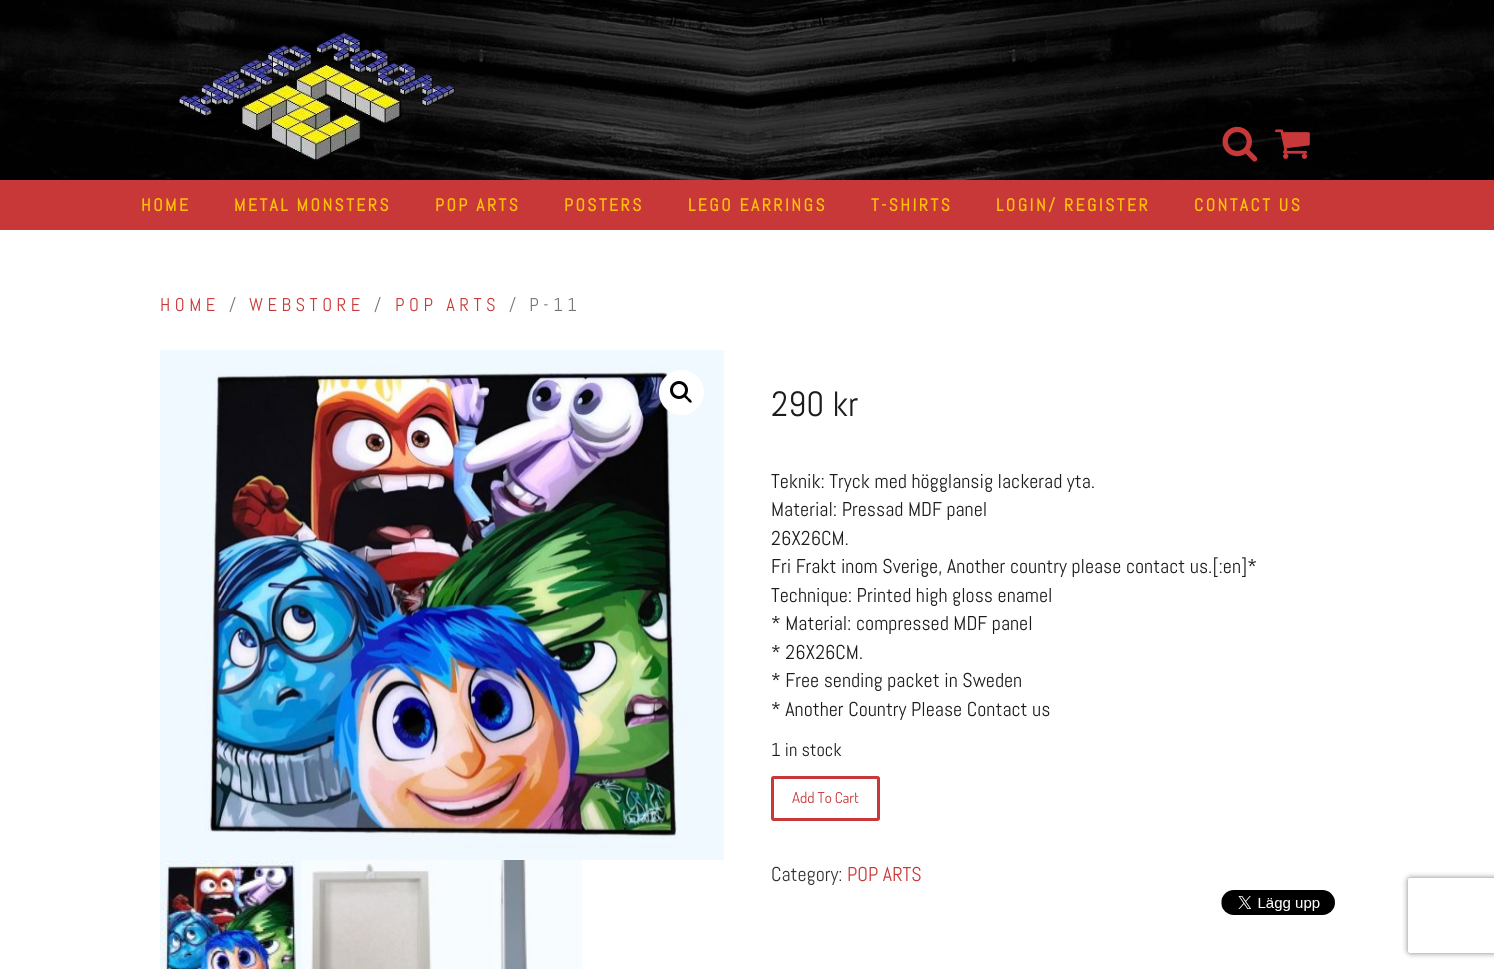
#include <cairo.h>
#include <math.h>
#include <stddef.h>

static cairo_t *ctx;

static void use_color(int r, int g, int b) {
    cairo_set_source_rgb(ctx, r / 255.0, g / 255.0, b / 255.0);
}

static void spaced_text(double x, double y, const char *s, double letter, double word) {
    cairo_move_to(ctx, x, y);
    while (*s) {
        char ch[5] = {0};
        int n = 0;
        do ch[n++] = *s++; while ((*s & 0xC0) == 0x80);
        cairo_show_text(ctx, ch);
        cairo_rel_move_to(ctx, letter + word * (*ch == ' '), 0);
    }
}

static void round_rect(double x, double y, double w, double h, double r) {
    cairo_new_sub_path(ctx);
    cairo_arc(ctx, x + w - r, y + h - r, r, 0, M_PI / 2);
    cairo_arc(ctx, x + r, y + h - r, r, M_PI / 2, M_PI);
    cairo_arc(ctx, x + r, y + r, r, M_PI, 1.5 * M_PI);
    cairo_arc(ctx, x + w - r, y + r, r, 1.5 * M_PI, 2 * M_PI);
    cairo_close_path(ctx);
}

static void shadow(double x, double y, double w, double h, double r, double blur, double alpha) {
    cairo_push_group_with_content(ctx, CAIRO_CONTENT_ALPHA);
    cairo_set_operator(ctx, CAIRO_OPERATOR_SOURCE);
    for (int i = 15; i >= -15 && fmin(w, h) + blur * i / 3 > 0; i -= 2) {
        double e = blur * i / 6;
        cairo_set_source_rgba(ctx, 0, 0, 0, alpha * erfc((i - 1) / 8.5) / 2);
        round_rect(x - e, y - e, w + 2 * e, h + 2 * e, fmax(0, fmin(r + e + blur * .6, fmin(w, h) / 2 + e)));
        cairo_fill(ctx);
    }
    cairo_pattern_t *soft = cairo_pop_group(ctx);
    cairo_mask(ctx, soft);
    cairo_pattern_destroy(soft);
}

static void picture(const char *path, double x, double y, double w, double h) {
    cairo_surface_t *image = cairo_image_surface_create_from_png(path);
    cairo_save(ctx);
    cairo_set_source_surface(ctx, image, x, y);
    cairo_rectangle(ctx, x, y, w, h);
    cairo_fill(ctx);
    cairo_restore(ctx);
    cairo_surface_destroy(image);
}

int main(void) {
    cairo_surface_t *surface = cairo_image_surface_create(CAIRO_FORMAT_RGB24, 1494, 969);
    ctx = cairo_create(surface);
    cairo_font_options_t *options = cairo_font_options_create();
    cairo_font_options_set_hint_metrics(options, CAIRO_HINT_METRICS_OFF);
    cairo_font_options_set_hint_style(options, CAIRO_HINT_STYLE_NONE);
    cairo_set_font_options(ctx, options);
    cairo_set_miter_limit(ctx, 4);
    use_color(255, 255, 255);
    cairo_paint(ctx);
    picture("img1.png", 0, 0, 1494, 180);
    picture("img2.png", 178, 30, 277, 132);
    picture("img3.png", 1222, 126, 36, 36);
    picture("img4.png", 1275, 129, 35, 30);
    use_color(201, 56, 56);
    cairo_rectangle(ctx, 0, 180, 1494, 50);
    cairo_fill(ctx);
    cairo_select_font_face(ctx, "Abel", CAIRO_FONT_SLANT_NORMAL, CAIRO_FONT_WEIGHT_BOLD);
    cairo_set_font_size(ctx, 17.5);
    use_color(255, 193, 7);
    spaced_text(141, 211, "HOME", 2.5, 0);
    spaced_text(234, 211, "METAL MONSTERS", 2.5, 0);
    spaced_text(435, 211, "POP ARTS", 2.5, 0);
    spaced_text(564, 211, "POSTERS", 2.5, 0);
    spaced_text(688, 211, "LEGO EARRINGS", 2.5, 0);
    spaced_text(871, 211, "T-SHIRTS", 2.5, 0);
    spaced_text(996, 211, "LOGIN/ REGISTER", 2.5, 0);
    spaced_text(1194, 211, "CONTACT US", 2.5, 0);
    cairo_select_font_face(ctx, "Abel", CAIRO_FONT_SLANT_NORMAL, CAIRO_FONT_WEIGHT_NORMAL);
    cairo_set_font_size(ctx, 18.5);
    use_color(201, 56, 56);
    spaced_text(160, 311, "HOME", 4.5, 0);
    use_color(118, 118, 118);
    spaced_text(229, 311, "/", 4.5, 0);
    use_color(201, 56, 56);
    spaced_text(249, 311, "WEBSTORE", 4.5, 0);
    use_color(118, 118, 118);
    spaced_text(374, 311, "/", 4.5, 0);
    use_color(201, 56, 56);
    spaced_text(395, 311, "POP ARTS", 4.5, 0);
    use_color(118, 118, 118);
    spaced_text(509, 311, "/ P-11", 4.5, 0);
    picture("img5.png", 160, 350, 564, 510);
    use_color(255, 255, 255);
    cairo_arc(ctx, 681.5, 392.5, 22.5, 0, 2 * M_PI);
    cairo_fill(ctx);
    cairo_arc(ctx, 679, 390, 7.5, 0, 2 * M_PI);
    use_color(0, 0, 0);
    cairo_set_line_width(ctx, 3);
    cairo_stroke(ctx);
    cairo_new_path(ctx);
    cairo_move_to(ctx, 684, 395);
    cairo_curve_to(ctx, 685.5, 394, 688, 397, 688.5, 398);
    cairo_curve_to(ctx, 689.5, 398.5, 692.5, 401, 691.5, 402.5);
    cairo_curve_to(ctx, 690, 403.5, 687.5, 400.5, 687, 399.5);
    cairo_curve_to(ctx, 686, 399, 683, 396.5, 684, 395);
    cairo_close_path(ctx);
    cairo_fill(ctx);
    picture("img6.png", 160, 860, 142, 109);
    picture("img7.png", 301, 860, 142, 109);
    picture("img8.png", 443, 860, 140, 109);
    cairo_set_font_size(ctx, 35);
    use_color(28, 28, 28);
    cairo_move_to(ctx, 771, 416);
    cairo_show_text(ctx, "290 kr");
    cairo_set_font_size(ctx, 20);
    cairo_move_to(ctx, 771, 488);
    cairo_show_text(ctx, "Teknik: Tryck med högglansig lackerad yta.");
    cairo_move_to(ctx, 771, 516);
    cairo_show_text(ctx, "Material: Pressad MDF panel");
    cairo_move_to(ctx, 771, 545);
    cairo_show_text(ctx, "26X26CM.");
    cairo_move_to(ctx, 771, 573);
    cairo_show_text(ctx, "Fri Frakt inom Sverige, Another country please contact us.[:en]*");
    cairo_move_to(ctx, 771, 602);
    cairo_show_text(ctx, "Technique: Printed high gloss enamel");
    cairo_move_to(ctx, 771, 630);
    cairo_show_text(ctx, "* Material: compressed MDF panel");
    cairo_move_to(ctx, 771, 659);
    cairo_show_text(ctx, "* 26X26CM.");
    cairo_move_to(ctx, 771, 687);
    cairo_show_text(ctx, "* Free sending packet in Sweden");
    cairo_move_to(ctx, 771, 716);
    cairo_show_text(ctx, "* Another Country Please Contact us");
    cairo_set_font_size(ctx, 18.5);
    cairo_move_to(ctx, 771, 756);
    cairo_show_text(ctx, "1 in stock");
    round_rect(772.5, 777.5, 106, 42, 1);
    use_color(201, 56, 56);
    cairo_stroke(ctx);
    cairo_select_font_face(ctx, "Dosis", CAIRO_FONT_SLANT_NORMAL, CAIRO_FONT_WEIGHT_NORMAL);
    cairo_set_font_size(ctx, 15);
    cairo_move_to(ctx, 792, 803);
    cairo_show_text(ctx, "Add To Cart");
    cairo_select_font_face(ctx, "Abel", CAIRO_FONT_SLANT_NORMAL, CAIRO_FONT_WEIGHT_NORMAL);
    cairo_set_font_size(ctx, 20);
    use_color(51, 51, 51);
    cairo_move_to(ctx, 771, 881);
    cairo_show_text(ctx, "Category:");
    use_color(201, 56, 56);
    cairo_move_to(ctx, 847, 881);
    cairo_show_text(ctx, "POP ARTS");
    picture("img9.png", 1221, 890, 114, 25);
    cairo_save(ctx);
    cairo_set_fill_rule(ctx, CAIRO_FILL_RULE_EVEN_ODD);
    cairo_new_path(ctx);
    cairo_move_to(ctx, 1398, 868);
    cairo_line_to(ctx, 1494, 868);
    cairo_line_to(ctx, 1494, 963);
    cairo_line_to(ctx, 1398, 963);
    cairo_close_path(ctx);
    cairo_move_to(ctx, 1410.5, 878);
    cairo_line_to(ctx, 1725.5, 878);
    cairo_curve_to(ctx, 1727, 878, 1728, 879, 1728, 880.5);
    cairo_line_to(ctx, 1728, 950.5);
    cairo_curve_to(ctx, 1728, 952, 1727, 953, 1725.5, 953);
    cairo_line_to(ctx, 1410.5, 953);
    cairo_curve_to(ctx, 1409, 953, 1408, 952, 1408, 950.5);
    cairo_line_to(ctx, 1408, 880.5);
    cairo_curve_to(ctx, 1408, 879, 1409, 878, 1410.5, 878);
    cairo_close_path(ctx);
    cairo_clip(ctx);
    use_color(128, 128, 128);
    shadow(1408, 878, 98, 75, 2.5, 3, 1);
    cairo_restore(ctx);
    cairo_surface_write_to_png(surface, "result.png");
    cairo_font_options_destroy(options);
    cairo_destroy(ctx);
    cairo_surface_destroy(surface);
    return 0;
}
